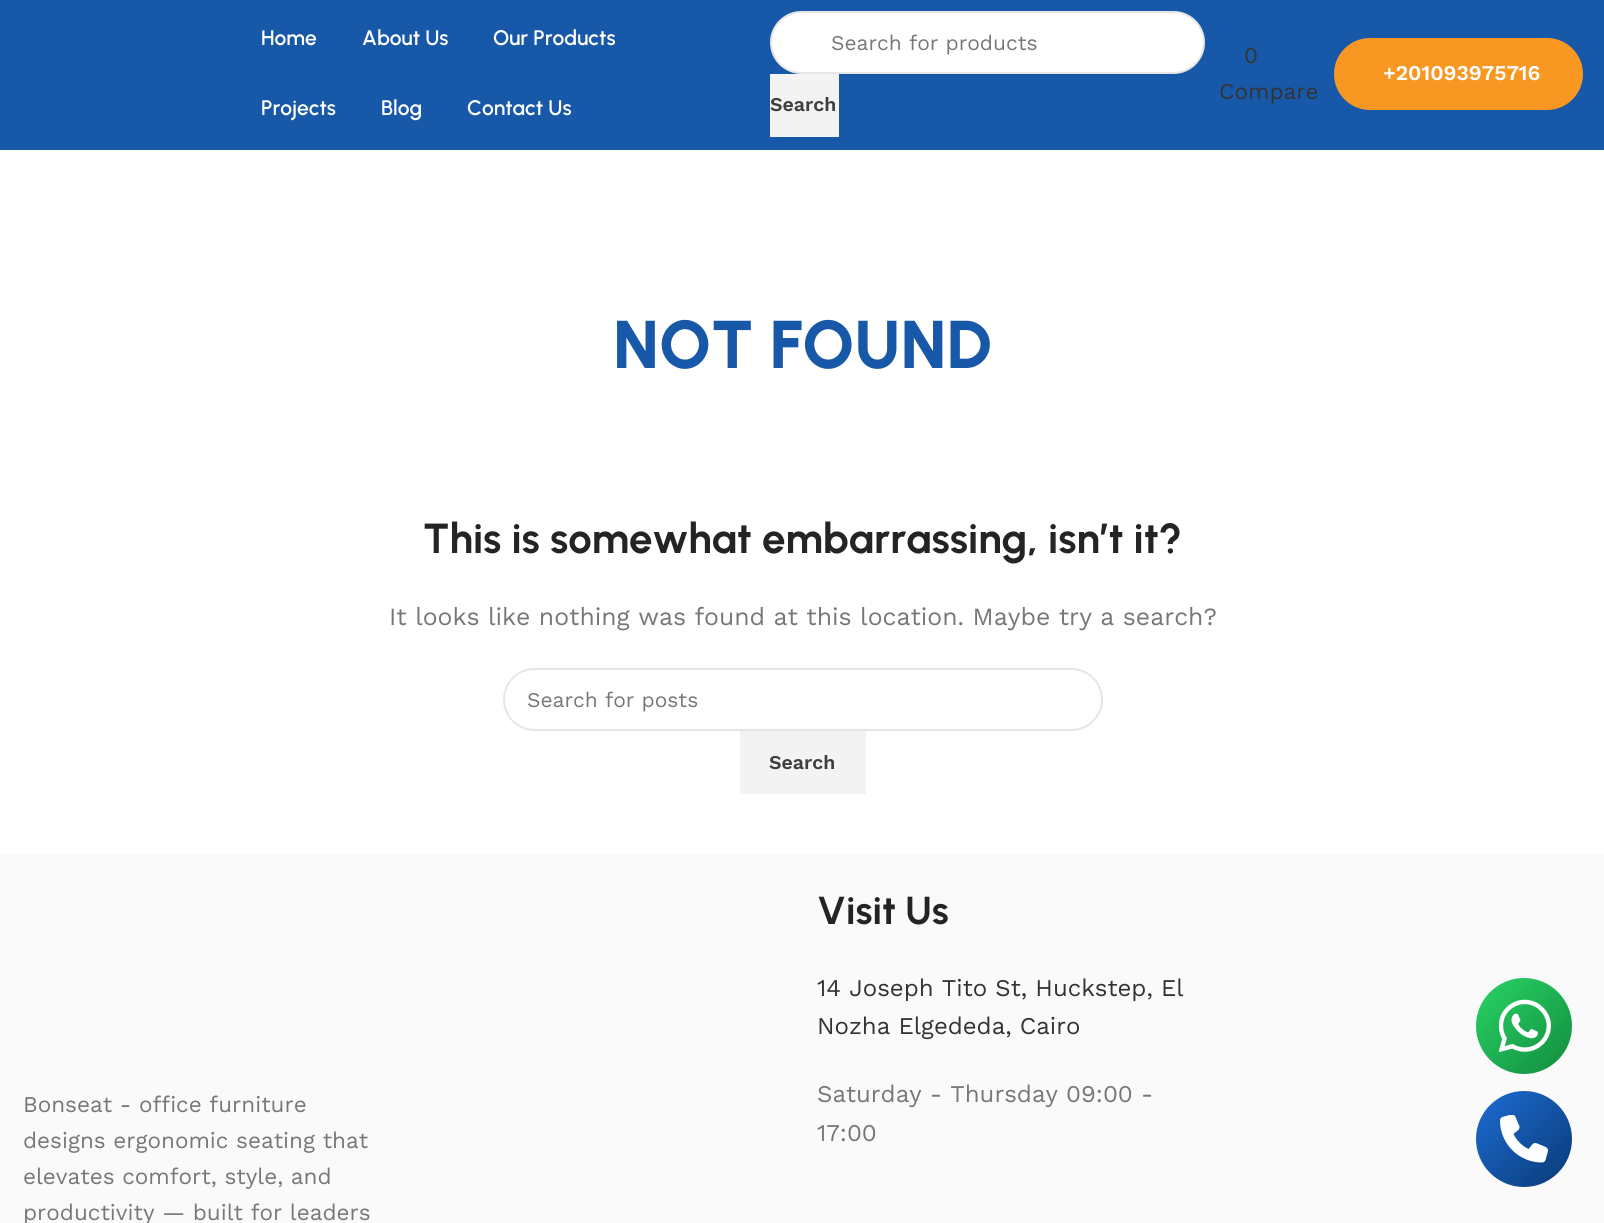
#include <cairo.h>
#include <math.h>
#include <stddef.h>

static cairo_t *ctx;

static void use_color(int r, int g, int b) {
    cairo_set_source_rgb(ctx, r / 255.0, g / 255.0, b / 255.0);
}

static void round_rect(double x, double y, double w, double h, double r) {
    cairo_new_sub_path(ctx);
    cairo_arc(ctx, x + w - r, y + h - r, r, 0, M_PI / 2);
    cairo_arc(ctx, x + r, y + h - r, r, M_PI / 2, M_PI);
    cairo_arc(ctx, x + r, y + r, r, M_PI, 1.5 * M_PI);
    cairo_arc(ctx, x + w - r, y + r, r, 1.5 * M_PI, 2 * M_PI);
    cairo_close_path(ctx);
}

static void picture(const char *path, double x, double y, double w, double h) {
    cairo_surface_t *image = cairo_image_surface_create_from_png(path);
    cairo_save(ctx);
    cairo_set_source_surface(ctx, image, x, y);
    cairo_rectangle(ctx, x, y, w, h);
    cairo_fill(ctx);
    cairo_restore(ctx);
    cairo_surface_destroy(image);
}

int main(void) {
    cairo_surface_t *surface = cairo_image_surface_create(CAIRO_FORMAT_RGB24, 1604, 1223);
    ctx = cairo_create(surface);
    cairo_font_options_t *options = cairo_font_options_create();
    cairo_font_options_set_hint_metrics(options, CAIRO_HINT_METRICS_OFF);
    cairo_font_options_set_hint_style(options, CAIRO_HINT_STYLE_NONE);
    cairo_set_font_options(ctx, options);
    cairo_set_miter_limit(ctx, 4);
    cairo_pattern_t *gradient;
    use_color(255, 255, 255);
    cairo_paint(ctx);
    use_color(24, 88, 168);
    cairo_rectangle(ctx, 0, 0, 1604, 150);
    cairo_fill(ctx);
    cairo_select_font_face(ctx, "Urbanist SemiBold", CAIRO_FONT_SLANT_NORMAL, CAIRO_FONT_WEIGHT_NORMAL);
    cairo_set_font_size(ctx, 21);
    use_color(255, 255, 255);
    cairo_move_to(ctx, 261, 45);
    cairo_show_text(ctx, "Home");
    cairo_move_to(ctx, 362, 45);
    cairo_show_text(ctx, "About Us");
    cairo_move_to(ctx, 493, 45);
    cairo_show_text(ctx, "Our Products");
    cairo_move_to(ctx, 261, 115);
    cairo_show_text(ctx, "Projects");
    cairo_move_to(ctx, 381, 115);
    cairo_show_text(ctx, "Blog");
    cairo_move_to(ctx, 467, 115);
    cairo_show_text(ctx, "Contact Us");
    round_rect(770, 11, 435, 63, 31.5);
    cairo_fill(ctx);
    round_rect(771, 12, 433, 61, 30.5);
    cairo_set_source_rgba(ctx, 0, 0, 0, 0.1);
    cairo_stroke(ctx);
    cairo_select_font_face(ctx, "Work Sans", CAIRO_FONT_SLANT_NORMAL, CAIRO_FONT_WEIGHT_NORMAL);
    use_color(119, 119, 119);
    cairo_move_to(ctx, 831, 50);
    cairo_show_text(ctx, "Search for products");
    use_color(243, 243, 243);
    cairo_rectangle(ctx, 770, 74, 69, 63);
    cairo_fill(ctx);
    cairo_select_font_face(ctx, "Work Sans SemiBold", CAIRO_FONT_SLANT_NORMAL, CAIRO_FONT_WEIGHT_NORMAL);
    cairo_set_font_size(ctx, 19.5);
    use_color(62, 62, 62);
    cairo_move_to(ctx, 770, 111);
    cairo_show_text(ctx, "Search");
    cairo_select_font_face(ctx, "Work Sans", CAIRO_FONT_SLANT_NORMAL, CAIRO_FONT_WEIGHT_NORMAL);
    cairo_set_font_size(ctx, 22.5);
    use_color(51, 51, 51);
    cairo_move_to(ctx, 1244, 63);
    cairo_show_text(ctx, "0");
    cairo_move_to(ctx, 1219, 99);
    cairo_show_text(ctx, "Compare");
    use_color(248, 151, 34);
    round_rect(1334, 38, 249, 72, 36);
    cairo_fill(ctx);
    cairo_select_font_face(ctx, "Work Sans SemiBold", CAIRO_FONT_SLANT_NORMAL, CAIRO_FONT_WEIGHT_NORMAL);
    cairo_set_font_size(ctx, 21);
    use_color(255, 255, 255);
    cairo_move_to(ctx, 1383, 80);
    cairo_show_text(ctx, "+201093975716");
    cairo_select_font_face(ctx, "Urbanist ExtraBold", CAIRO_FONT_SLANT_NORMAL, CAIRO_FONT_WEIGHT_NORMAL);
    cairo_set_font_size(ctx, 67.5);
    use_color(24, 88, 168);
    cairo_move_to(ctx, 613, 368);
    cairo_show_text(ctx, "NOT FOUND");
    cairo_select_font_face(ctx, "Urbanist", CAIRO_FONT_SLANT_NORMAL, CAIRO_FONT_WEIGHT_BOLD);
    cairo_set_font_size(ctx, 42);
    use_color(36, 36, 36);
    cairo_move_to(ctx, 423, 553);
    cairo_show_text(ctx, "This is somewhat embarrassing, isn’t it?");
    cairo_select_font_face(ctx, "Work Sans", CAIRO_FONT_SLANT_NORMAL, CAIRO_FONT_WEIGHT_NORMAL);
    cairo_set_font_size(ctx, 24.75);
    use_color(119, 119, 119);
    cairo_move_to(ctx, 389, 625);
    cairo_show_text(ctx, "It looks like nothing was found at this location. Maybe try a search?");
    round_rect(504, 669, 598, 61, 30.5);
    use_color(230, 230, 230);
    cairo_stroke(ctx);
    cairo_set_font_size(ctx, 21);
    use_color(119, 119, 119);
    cairo_move_to(ctx, 527, 707);
    cairo_show_text(ctx, "Search for posts");
    use_color(243, 243, 243);
    cairo_rectangle(ctx, 740, 731, 126, 63);
    cairo_fill(ctx);
    cairo_select_font_face(ctx, "Work Sans SemiBold", CAIRO_FONT_SLANT_NORMAL, CAIRO_FONT_WEIGHT_NORMAL);
    cairo_set_font_size(ctx, 19.5);
    use_color(62, 62, 62);
    cairo_move_to(ctx, 769, 769);
    cairo_show_text(ctx, "Search");
    use_color(250, 250, 250);
    cairo_rectangle(ctx, 0, 854, 1604, 369);
    cairo_fill(ctx);
    cairo_select_font_face(ctx, "Urbanist", CAIRO_FONT_SLANT_NORMAL, CAIRO_FONT_WEIGHT_BOLD);
    cairo_set_font_size(ctx, 39);
    use_color(36, 36, 36);
    cairo_move_to(ctx, 817, 924);
    cairo_show_text(ctx, "Visit Us");
    cairo_select_font_face(ctx, "Work Sans", CAIRO_FONT_SLANT_NORMAL, CAIRO_FONT_WEIGHT_NORMAL);
    cairo_set_font_size(ctx, 24);
    use_color(51, 51, 51);
    cairo_move_to(ctx, 817, 996);
    cairo_show_text(ctx, "14 Joseph Tito St, Huckstep, El");
    cairo_move_to(ctx, 817, 1034);
    cairo_show_text(ctx, "Nozha Elgededa, Cairo");
    use_color(119, 119, 119);
    cairo_move_to(ctx, 817, 1102);
    cairo_show_text(ctx, "Saturday - Thursday 09:00 -");
    cairo_move_to(ctx, 817, 1141);
    cairo_show_text(ctx, "17:00");
    cairo_set_font_size(ctx, 22.5);
    cairo_move_to(ctx, 23, 1112);
    cairo_show_text(ctx, "Bonseat - office furniture");
    cairo_move_to(ctx, 23, 1148);
    cairo_show_text(ctx, "designs ergonomic seating that");
    cairo_move_to(ctx, 23, 1184);
    cairo_show_text(ctx, "elevates comfort, style, and");
    cairo_move_to(ctx, 23, 1220);
    cairo_show_text(ctx, "productivity — built for leaders");
    gradient = cairo_pattern_create_linear(1476, 978, 1572, 1074);
    cairo_pattern_add_color_stop_rgba(gradient, 0, 0.161, 0.831, 0.4, 1);
    cairo_pattern_add_color_stop_rgba(gradient, 1, 0.071, 0.549, 0.243, 1);
    cairo_set_source(ctx, gradient);
    cairo_pattern_destroy(gradient);
    cairo_new_path(ctx);
    cairo_arc(ctx, 1524, 1026, 48, 0, 2 * M_PI);
    cairo_fill(ctx);
    picture("img1.png", 1499, 999, 52, 54);
    gradient = cairo_pattern_create_linear(1476, 1091, 1572, 1187);
    cairo_pattern_add_color_stop_rgba(gradient, 0, 0.11, 0.424, 0.831, 1);
    cairo_pattern_add_color_stop_rgba(gradient, 1, 0.039, 0.227, 0.459, 1);
    cairo_set_source(ctx, gradient);
    cairo_pattern_destroy(gradient);
    cairo_arc(ctx, 1524, 1139, 48, 0, 2 * M_PI);
    cairo_fill(ctx);
    picture("img2.png", 1500, 1115, 48, 48);
    cairo_surface_write_to_png(surface, "result.png");
    cairo_font_options_destroy(options);
    cairo_destroy(ctx);
    cairo_surface_destroy(surface);
    return 0;
}
